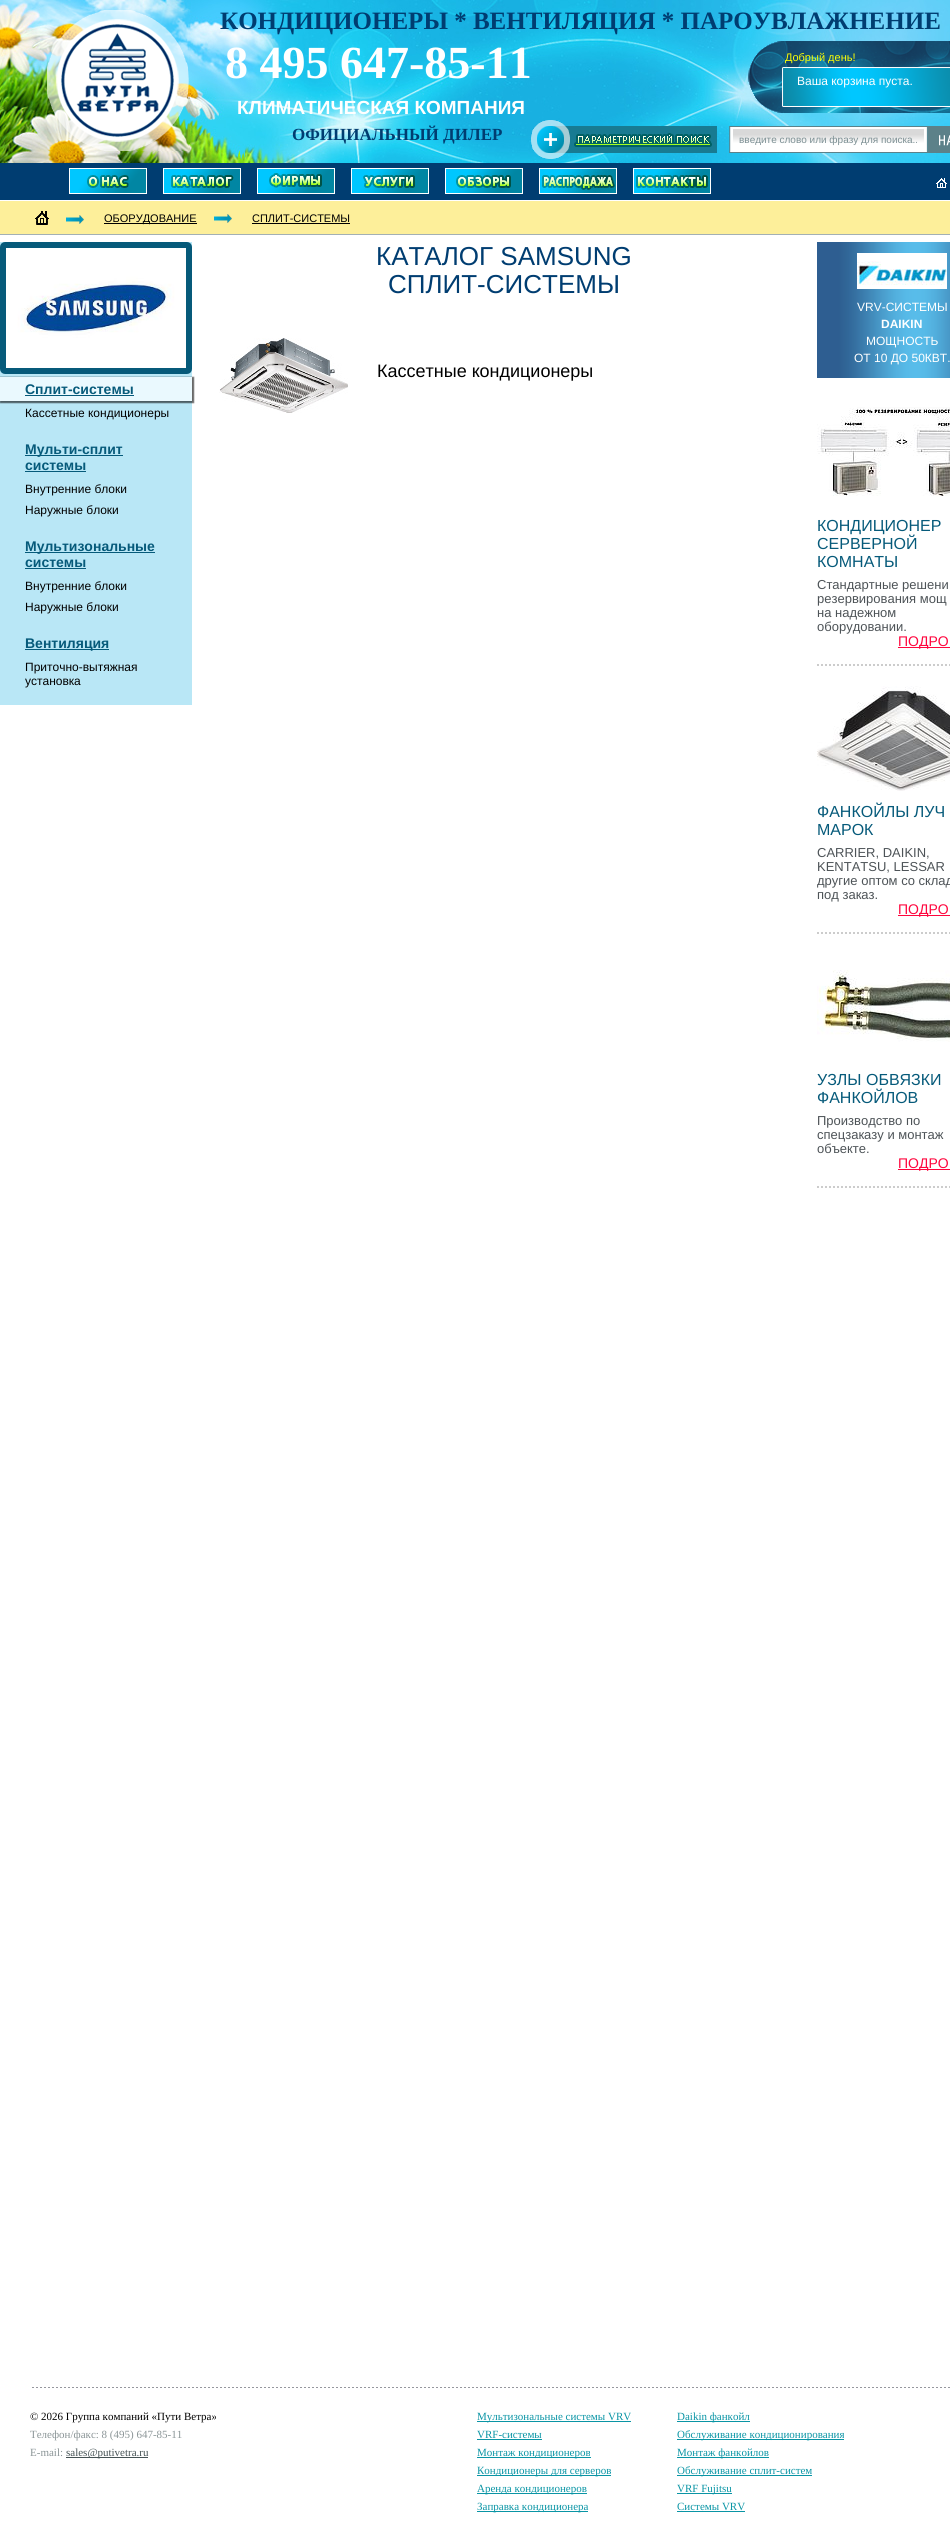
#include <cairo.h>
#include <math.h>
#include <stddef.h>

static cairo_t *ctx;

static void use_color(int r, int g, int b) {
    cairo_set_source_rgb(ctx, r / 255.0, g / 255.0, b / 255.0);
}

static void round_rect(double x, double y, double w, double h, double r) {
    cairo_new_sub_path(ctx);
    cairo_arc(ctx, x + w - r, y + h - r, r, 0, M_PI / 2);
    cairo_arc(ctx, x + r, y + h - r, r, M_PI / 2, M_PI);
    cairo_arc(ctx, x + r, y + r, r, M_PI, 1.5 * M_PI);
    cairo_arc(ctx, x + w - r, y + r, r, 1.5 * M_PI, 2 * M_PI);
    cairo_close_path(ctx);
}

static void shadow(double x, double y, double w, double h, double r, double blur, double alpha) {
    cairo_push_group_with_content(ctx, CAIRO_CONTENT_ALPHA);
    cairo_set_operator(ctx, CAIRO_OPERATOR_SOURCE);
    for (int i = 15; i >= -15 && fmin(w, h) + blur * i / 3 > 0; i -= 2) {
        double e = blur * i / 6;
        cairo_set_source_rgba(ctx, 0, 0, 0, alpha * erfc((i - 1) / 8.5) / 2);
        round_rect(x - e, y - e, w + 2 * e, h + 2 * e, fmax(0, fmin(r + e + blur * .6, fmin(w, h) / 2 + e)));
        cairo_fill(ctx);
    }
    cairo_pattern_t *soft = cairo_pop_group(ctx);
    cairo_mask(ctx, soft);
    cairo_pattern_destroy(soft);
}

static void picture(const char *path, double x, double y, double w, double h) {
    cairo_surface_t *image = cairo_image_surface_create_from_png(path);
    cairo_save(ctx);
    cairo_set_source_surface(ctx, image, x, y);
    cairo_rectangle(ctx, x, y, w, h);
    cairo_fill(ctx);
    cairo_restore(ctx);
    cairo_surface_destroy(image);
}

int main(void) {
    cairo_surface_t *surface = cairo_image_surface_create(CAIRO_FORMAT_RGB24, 950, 2542);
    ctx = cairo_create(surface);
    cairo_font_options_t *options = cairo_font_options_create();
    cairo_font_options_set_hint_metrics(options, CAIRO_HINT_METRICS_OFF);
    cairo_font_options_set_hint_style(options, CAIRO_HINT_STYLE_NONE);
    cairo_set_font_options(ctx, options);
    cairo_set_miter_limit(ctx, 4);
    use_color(255, 255, 255);
    cairo_paint(ctx);
    picture("img1.png", 0, 0, 950, 163);
    picture("img2.png", 47, 10, 142, 141);
    cairo_select_font_face(ctx, "Liberation Serif", CAIRO_FONT_SLANT_NORMAL, CAIRO_FONT_WEIGHT_BOLD);
    cairo_set_font_size(ctx, 25);
    use_color(0, 61, 113);
    cairo_move_to(ctx, 220, 29);
    cairo_show_text(ctx, "КОНДИЦИОНЕРЫ * ВЕНТИЛЯЦИЯ * ПАРОУВЛАЖНЕНИЕ");
    cairo_set_font_size(ctx, 46);
    use_color(255, 255, 255);
    cairo_move_to(ctx, 225, 78);
    cairo_show_text(ctx, "8 495 647-85-11");
    picture("img3.png", 748, 41, 202, 72);
    cairo_select_font_face(ctx, "Liberation Sans", CAIRO_FONT_SLANT_NORMAL, CAIRO_FONT_WEIGHT_NORMAL);
    cairo_set_font_size(ctx, 11);
    use_color(251, 254, 4);
    cairo_move_to(ctx, 785, 61);
    cairo_show_text(ctx, "Добрый день!");
    cairo_set_font_size(ctx, 12);
    use_color(255, 255, 255);
    cairo_move_to(ctx, 797, 85);
    cairo_show_text(ctx, "Ваша корзина пуста.");
    cairo_select_font_face(ctx, "Liberation Sans", CAIRO_FONT_SLANT_NORMAL, CAIRO_FONT_WEIGHT_BOLD);
    cairo_set_font_size(ctx, 19);
    cairo_move_to(ctx, 237, 114);
    cairo_show_text(ctx, "КЛИМАТИЧЕСКАЯ КОМПАНИЯ");
    cairo_select_font_face(ctx, "Liberation Serif", CAIRO_FONT_SLANT_NORMAL, CAIRO_FONT_WEIGHT_BOLD);
    cairo_set_font_size(ctx, 17);
    use_color(0, 61, 113);
    cairo_move_to(ctx, 292, 140);
    cairo_show_text(ctx, "ОФИЦИАЛЬНЫЙ ДИЛЕР");
    picture("img4.png", 531, 120, 186, 39);
    picture("img5.png", 729, 126, 199, 27);
    cairo_select_font_face(ctx, "Liberation Sans", CAIRO_FONT_SLANT_NORMAL, CAIRO_FONT_WEIGHT_NORMAL);
    cairo_set_font_size(ctx, 10);
    use_color(124, 143, 147);
    cairo_move_to(ctx, 739, 143);
    cairo_show_text(ctx, "введите слово или фразу для поиска..");
    picture("img6.png", 928, 126, 22, 27);
    use_color(0, 61, 113);
    cairo_rectangle(ctx, 0, 163, 950, 37);
    cairo_fill(ctx);
    picture("img7.png", 69, 168, 78, 26);
    picture("img8.png", 163, 168, 78, 26);
    picture("img9.png", 257, 168, 78, 26);
    picture("img10.png", 351, 168, 78, 26);
    picture("img11.png", 445, 168, 78, 26);
    picture("img12.png", 539, 168, 78, 26);
    picture("img13.png", 633, 168, 78, 26);
    picture("img14.png", 936, 178, 11, 10);
    use_color(253, 239, 154);
    cairo_rectangle(ctx, 0, 201, 950, 33);
    cairo_fill(ctx);
    use_color(163, 176, 180);
    cairo_rectangle(ctx, 0, 234, 950, 1);
    cairo_fill(ctx);
    picture("img15.png", 66, 215, 18, 9);
    picture("img16.png", 35, 211, 14, 14);
    picture("img15.png", 214, 214, 18, 9);
    use_color(0, 0, 0);
    cairo_rectangle(ctx, 104, 223, 93, 1);
    cairo_fill(ctx);
    cairo_set_font_size(ctx, 11);
    cairo_move_to(ctx, 104, 222);
    cairo_show_text(ctx, "ОБОРУДОВАНИЕ");
    cairo_move_to(ctx, 252, 222);
    cairo_show_text(ctx, "СПЛИТ-СИСТЕМЫ");
    cairo_rectangle(ctx, 252, 223, 98, 1);
    cairo_fill(ctx);
    use_color(185, 231, 246);
    cairo_rectangle(ctx, 0, 242, 192, 463);
    cairo_fill(ctx);
    round_rect(3, 245, 186, 126, 2);
    use_color(6, 90, 122);
    cairo_set_line_width(ctx, 6);
    cairo_stroke(ctx);
    picture("img17.png", 6, 248, 180, 120);
    use_color(3, 3, 3);
    shadow(0, 377, 194, 26, 0, 0.5, 0.6);
    use_color(234, 249, 254);
    cairo_rectangle(ctx, 0, 377, 192, 24);
    cairo_fill(ctx);
    cairo_select_font_face(ctx, "Liberation Sans", CAIRO_FONT_SLANT_NORMAL, CAIRO_FONT_WEIGHT_BOLD);
    cairo_set_font_size(ctx, 14);
    use_color(6, 90, 122);
    cairo_move_to(ctx, 25, 394);
    cairo_show_text(ctx, "Сплит-системы");
    cairo_rectangle(ctx, 25, 395, 109, 1);
    cairo_fill(ctx);
    cairo_select_font_face(ctx, "Liberation Sans", CAIRO_FONT_SLANT_NORMAL, CAIRO_FONT_WEIGHT_NORMAL);
    cairo_set_font_size(ctx, 12);
    use_color(0, 0, 0);
    cairo_move_to(ctx, 25, 417);
    cairo_show_text(ctx, "Кассетные кондиционеры");
    use_color(6, 90, 122);
    cairo_rectangle(ctx, 25, 455, 98, 1);
    cairo_fill(ctx);
    cairo_select_font_face(ctx, "Liberation Sans", CAIRO_FONT_SLANT_NORMAL, CAIRO_FONT_WEIGHT_BOLD);
    cairo_set_font_size(ctx, 14);
    cairo_move_to(ctx, 25, 454);
    cairo_show_text(ctx, "Мульти-сплит");
    cairo_move_to(ctx, 25, 470);
    cairo_show_text(ctx, "системы");
    cairo_rectangle(ctx, 25, 471, 61, 1);
    cairo_fill(ctx);
    cairo_select_font_face(ctx, "Liberation Sans", CAIRO_FONT_SLANT_NORMAL, CAIRO_FONT_WEIGHT_NORMAL);
    cairo_set_font_size(ctx, 12);
    use_color(0, 0, 0);
    cairo_move_to(ctx, 25, 493);
    cairo_show_text(ctx, "Внутренние блоки");
    cairo_move_to(ctx, 25, 514);
    cairo_show_text(ctx, "Наружные блоки");
    use_color(6, 90, 122);
    cairo_rectangle(ctx, 25, 552, 130, 1);
    cairo_fill(ctx);
    cairo_select_font_face(ctx, "Liberation Sans", CAIRO_FONT_SLANT_NORMAL, CAIRO_FONT_WEIGHT_BOLD);
    cairo_set_font_size(ctx, 14);
    cairo_move_to(ctx, 25, 551);
    cairo_show_text(ctx, "Мультизональные");
    cairo_move_to(ctx, 25, 567);
    cairo_show_text(ctx, "системы");
    cairo_rectangle(ctx, 25, 568, 61, 1);
    cairo_fill(ctx);
    cairo_select_font_face(ctx, "Liberation Sans", CAIRO_FONT_SLANT_NORMAL, CAIRO_FONT_WEIGHT_NORMAL);
    cairo_set_font_size(ctx, 12);
    use_color(0, 0, 0);
    cairo_move_to(ctx, 25, 590);
    cairo_show_text(ctx, "Внутренние блоки");
    cairo_move_to(ctx, 25, 611);
    cairo_show_text(ctx, "Наружные блоки");
    use_color(6, 90, 122);
    cairo_rectangle(ctx, 25, 649, 84, 1);
    cairo_fill(ctx);
    cairo_select_font_face(ctx, "Liberation Sans", CAIRO_FONT_SLANT_NORMAL, CAIRO_FONT_WEIGHT_BOLD);
    cairo_set_font_size(ctx, 14);
    cairo_move_to(ctx, 25, 648);
    cairo_show_text(ctx, "Вентиляция");
    cairo_select_font_face(ctx, "Liberation Sans", CAIRO_FONT_SLANT_NORMAL, CAIRO_FONT_WEIGHT_NORMAL);
    cairo_set_font_size(ctx, 12);
    use_color(0, 0, 0);
    cairo_move_to(ctx, 25, 671);
    cairo_show_text(ctx, "Приточно-вытяжная");
    cairo_move_to(ctx, 25, 685);
    cairo_show_text(ctx, "установка");
    cairo_set_font_size(ctx, 26);
    use_color(0, 61, 113);
    cairo_move_to(ctx, 376, 265);
    cairo_show_text(ctx, "КАТАЛОГ SAMSUNG");
    cairo_move_to(ctx, 388, 293);
    cairo_show_text(ctx, "СПЛИТ-СИСТЕМЫ");
    picture("img18.png", 219, 338, 129, 75);
    cairo_set_font_size(ctx, 18);
    use_color(0, 0, 0);
    cairo_move_to(ctx, 377, 377);
    cairo_show_text(ctx, "Кассетные кондиционеры");
    picture("img19.png", 817, 242, 133, 136);
    picture("img20.png", 857, 253, 90, 36);
    cairo_set_font_size(ctx, 12);
    use_color(255, 255, 255);
    cairo_move_to(ctx, 857, 311);
    cairo_show_text(ctx, "VRV-СИСТЕМЫ");
    cairo_select_font_face(ctx, "Liberation Sans", CAIRO_FONT_SLANT_NORMAL, CAIRO_FONT_WEIGHT_BOLD);
    cairo_move_to(ctx, 881, 328);
    cairo_show_text(ctx, "DAIKIN");
    cairo_select_font_face(ctx, "Liberation Sans", CAIRO_FONT_SLANT_NORMAL, CAIRO_FONT_WEIGHT_NORMAL);
    cairo_move_to(ctx, 866, 345);
    cairo_show_text(ctx, "МОЩНОСТЬ");
    cairo_move_to(ctx, 854, 362);
    cairo_show_text(ctx, "ОТ 10 ДО 50КВТ.");
    cairo_new_path(ctx);
    cairo_move_to(ctx, 817, 665);
    cairo_line_to(ctx, 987, 665);
    use_color(204, 204, 204);
    cairo_set_line_width(ctx, 2);
    cairo_set_dash(ctx, (double[]){2, 2}, 2, 0);
    cairo_stroke(ctx);
    picture("img21.png", 817, 407, 133, 89);
    cairo_set_font_size(ctx, 16);
    use_color(6, 90, 122);
    cairo_move_to(ctx, 817, 531);
    cairo_show_text(ctx, "КОНДИЦИОНЕР");
    cairo_move_to(ctx, 817, 549);
    cairo_show_text(ctx, "СЕРВЕРНОЙ");
    cairo_move_to(ctx, 817, 567);
    cairo_show_text(ctx, "КОМНАТЫ");
    cairo_set_font_size(ctx, 13);
    use_color(77, 83, 87);
    cairo_move_to(ctx, 817, 589);
    cairo_show_text(ctx, "Стандартные решени");
    cairo_move_to(ctx, 817, 603);
    cairo_show_text(ctx, "резервирования мощ");
    cairo_move_to(ctx, 817, 617);
    cairo_show_text(ctx, "на надежном");
    cairo_move_to(ctx, 817, 631);
    cairo_show_text(ctx, "оборудовании.");
    use_color(255, 5, 61);
    cairo_rectangle(ctx, 898, 647, 52, 1);
    cairo_fill(ctx);
    cairo_set_font_size(ctx, 14);
    cairo_move_to(ctx, 898, 646);
    cairo_show_text(ctx, "ПОДРО");
    cairo_new_path(ctx);
    cairo_move_to(ctx, 817, 933);
    cairo_line_to(ctx, 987, 933);
    use_color(204, 204, 204);
    cairo_stroke(ctx);
    picture("img22.png", 817, 686, 133, 105);
    cairo_set_font_size(ctx, 16);
    use_color(6, 90, 122);
    cairo_move_to(ctx, 817, 817);
    cairo_show_text(ctx, "ФАНКОЙЛЫ ЛУЧ");
    cairo_move_to(ctx, 817, 835);
    cairo_show_text(ctx, "МАРОК");
    cairo_set_font_size(ctx, 13);
    use_color(77, 83, 87);
    cairo_move_to(ctx, 817, 857);
    cairo_show_text(ctx, "CARRIER, DAIKIN,");
    cairo_move_to(ctx, 817, 871);
    cairo_show_text(ctx, "KENTATSU, LESSAR");
    cairo_move_to(ctx, 817, 885);
    cairo_show_text(ctx, "другие оптом со склад");
    cairo_move_to(ctx, 817, 899);
    cairo_show_text(ctx, "под заказ.");
    use_color(255, 5, 61);
    cairo_rectangle(ctx, 898, 915, 52, 1);
    cairo_fill(ctx);
    cairo_set_font_size(ctx, 14);
    cairo_move_to(ctx, 898, 914);
    cairo_show_text(ctx, "ПОДРО");
    cairo_new_path(ctx);
    cairo_move_to(ctx, 817, 1187);
    cairo_line_to(ctx, 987, 1187);
    use_color(204, 204, 204);
    cairo_stroke(ctx);
    picture("img23.png", 817, 970, 133, 72);
    cairo_set_font_size(ctx, 16);
    use_color(6, 90, 122);
    cairo_move_to(ctx, 817, 1085);
    cairo_show_text(ctx, "УЗЛЫ ОБВЯЗКИ");
    cairo_move_to(ctx, 817, 1103);
    cairo_show_text(ctx, "ФАНКОЙЛОВ");
    cairo_set_font_size(ctx, 13);
    use_color(77, 83, 87);
    cairo_move_to(ctx, 817, 1125);
    cairo_show_text(ctx, "Производство по");
    cairo_move_to(ctx, 817, 1139);
    cairo_show_text(ctx, "спецзаказу и монтаж");
    cairo_move_to(ctx, 817, 1153);
    cairo_show_text(ctx, "объекте.");
    use_color(255, 5, 61);
    cairo_rectangle(ctx, 898, 1169, 52, 1);
    cairo_fill(ctx);
    cairo_set_font_size(ctx, 14);
    cairo_move_to(ctx, 898, 1168);
    cairo_show_text(ctx, "ПОДРО");
    picture("img24.png", 32, 2387, 918, 1);
    cairo_select_font_face(ctx, "Liberation Serif", CAIRO_FONT_SLANT_NORMAL, CAIRO_FONT_WEIGHT_NORMAL);
    cairo_set_font_size(ctx, 11);
    use_color(0, 0, 0);
    cairo_move_to(ctx, 30, 2420);
    cairo_show_text(ctx, "© 2026 Группа компаний «Пути Ветра»");
    use_color(139, 149, 151);
    cairo_move_to(ctx, 30, 2438);
    cairo_show_text(ctx, "Телефон/факс: 8 (495) 647-85-11");
    cairo_move_to(ctx, 30, 2456);
    cairo_show_text(ctx, "E-mail:");
    use_color(69, 82, 84);
    cairo_rectangle(ctx, 66, 2457, 82, 1);
    cairo_fill(ctx);
    cairo_move_to(ctx, 66, 2456);
    cairo_show_text(ctx, "sales@putivetra.ru");
    use_color(10, 149, 165);
    cairo_rectangle(ctx, 477, 2421, 154, 1);
    cairo_fill(ctx);
    cairo_move_to(ctx, 477, 2420);
    cairo_show_text(ctx, "Мультизональные системы VRV");
    cairo_move_to(ctx, 477, 2438);
    cairo_show_text(ctx, "VRF-системы");
    cairo_rectangle(ctx, 477, 2439, 65, 1);
    cairo_fill(ctx);
    cairo_rectangle(ctx, 477, 2457, 114, 1);
    cairo_fill(ctx);
    cairo_move_to(ctx, 477, 2456);
    cairo_show_text(ctx, "Монтаж кондиционеров");
    cairo_rectangle(ctx, 477, 2475, 134, 1);
    cairo_fill(ctx);
    cairo_move_to(ctx, 477, 2474);
    cairo_show_text(ctx, "Кондиционеры для серверов");
    cairo_rectangle(ctx, 477, 2493, 110, 1);
    cairo_fill(ctx);
    cairo_move_to(ctx, 477, 2492);
    cairo_show_text(ctx, "Аренда кондиционеров");
    cairo_rectangle(ctx, 477, 2511, 111, 1);
    cairo_fill(ctx);
    cairo_move_to(ctx, 477, 2510);
    cairo_show_text(ctx, "Заправка кондиционера");
    cairo_rectangle(ctx, 677, 2421, 73, 1);
    cairo_fill(ctx);
    cairo_move_to(ctx, 677, 2420);
    cairo_show_text(ctx, "Daikin фанкойл");
    cairo_rectangle(ctx, 677, 2439, 167, 1);
    cairo_fill(ctx);
    cairo_move_to(ctx, 677, 2438);
    cairo_show_text(ctx, "Обслуживание кондиционирования");
    cairo_rectangle(ctx, 677, 2457, 92, 1);
    cairo_fill(ctx);
    cairo_move_to(ctx, 677, 2456);
    cairo_show_text(ctx, "Монтаж фанкойлов");
    cairo_rectangle(ctx, 677, 2475, 135, 1);
    cairo_fill(ctx);
    cairo_move_to(ctx, 677, 2474);
    cairo_show_text(ctx, "Обслуживание сплит-систем");
    cairo_rectangle(ctx, 677, 2493, 55, 1);
    cairo_fill(ctx);
    cairo_move_to(ctx, 677, 2492);
    cairo_show_text(ctx, "VRF Fujitsu");
    cairo_move_to(ctx, 677, 2510);
    cairo_show_text(ctx, "Системы VRV");
    cairo_rectangle(ctx, 677, 2511, 68, 1);
    cairo_fill(ctx);
    cairo_surface_write_to_png(surface, "result.png");
    cairo_font_options_destroy(options);
    cairo_destroy(ctx);
    cairo_surface_destroy(surface);
    return 0;
}
